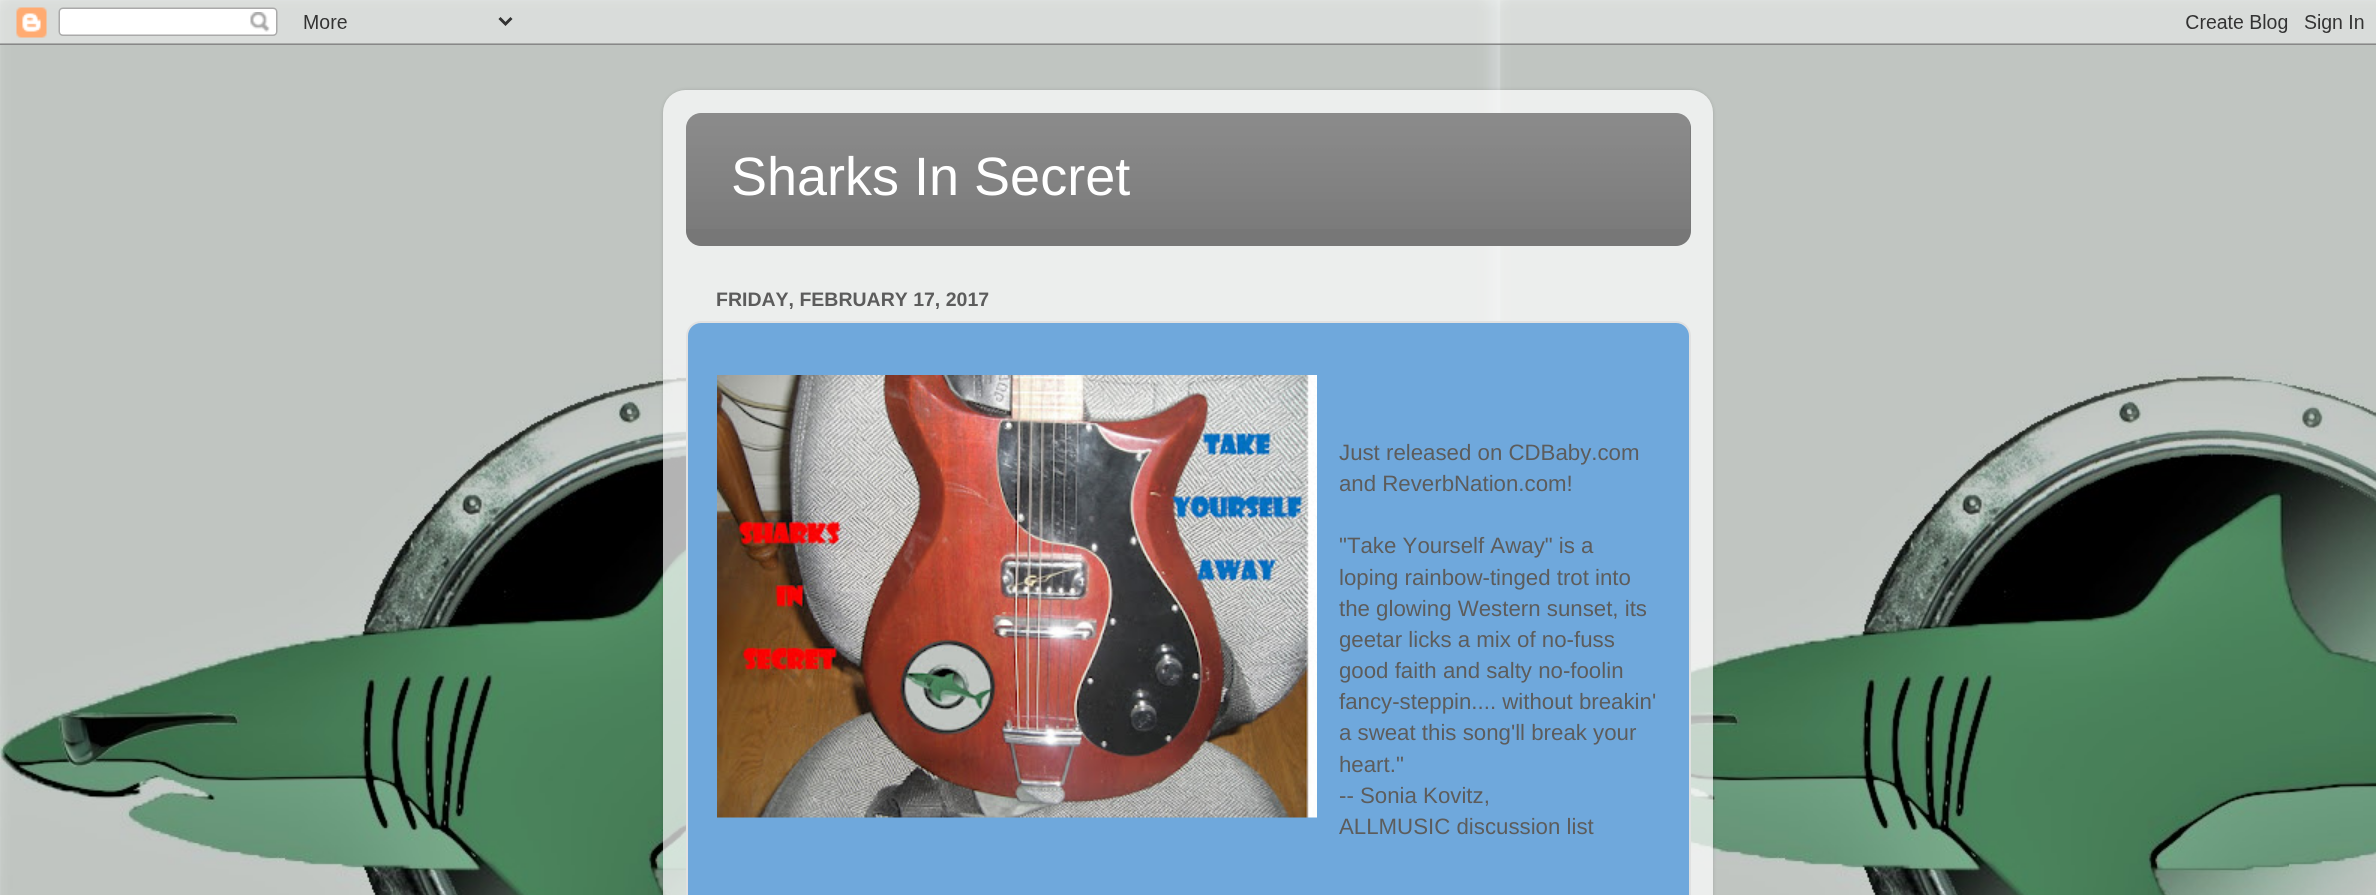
#include <cairo.h>
#include <math.h>
#include <stddef.h>

static cairo_t *ctx;

static void use_color(int r, int g, int b) {
    cairo_set_source_rgb(ctx, r / 255.0, g / 255.0, b / 255.0);
}

static void round_rect(double x, double y, double w, double h, double r) {
    cairo_new_sub_path(ctx);
    cairo_arc(ctx, x + w - r, y + h - r, r, 0, M_PI / 2);
    cairo_arc(ctx, x + r, y + h - r, r, M_PI / 2, M_PI);
    cairo_arc(ctx, x + r, y + r, r, M_PI, 1.5 * M_PI);
    cairo_arc(ctx, x + w - r, y + r, r, 1.5 * M_PI, 2 * M_PI);
    cairo_close_path(ctx);
}

static void shadow(double x, double y, double w, double h, double r, double blur, double alpha) {
    cairo_push_group_with_content(ctx, CAIRO_CONTENT_ALPHA);
    cairo_set_operator(ctx, CAIRO_OPERATOR_SOURCE);
    for (int i = 15; i >= -15 && fmin(w, h) + blur * i / 3 > 0; i -= 2) {
        double e = blur * i / 6;
        cairo_set_source_rgba(ctx, 0, 0, 0, alpha * erfc((i - 1) / 8.5) / 2);
        round_rect(x - e, y - e, w + 2 * e, h + 2 * e, fmax(0, fmin(r + e + blur * .6, fmin(w, h) / 2 + e)));
        cairo_fill(ctx);
    }
    cairo_pattern_t *soft = cairo_pop_group(ctx);
    cairo_mask(ctx, soft);
    cairo_pattern_destroy(soft);
}

static void picture(const char *path, double x, double y, double w, double h) {
    cairo_surface_t *image = cairo_image_surface_create_from_png(path);
    cairo_save(ctx);
    cairo_set_source_surface(ctx, image, x, y);
    cairo_rectangle(ctx, x, y, w, h);
    cairo_fill(ctx);
    cairo_restore(ctx);
    cairo_surface_destroy(image);
}

int main(void) {
    cairo_surface_t *surface = cairo_image_surface_create(CAIRO_FORMAT_RGB24, 2376, 895);
    ctx = cairo_create(surface);
    cairo_font_options_t *options = cairo_font_options_create();
    cairo_font_options_set_hint_metrics(options, CAIRO_HINT_METRICS_OFF);
    cairo_font_options_set_hint_style(options, CAIRO_HINT_STYLE_NONE);
    cairo_set_font_options(ctx, options);
    cairo_set_miter_limit(ctx, 4);
    use_color(255, 255, 255);
    cairo_paint(ctx);
    picture("img1.png", 0, 0, 2376, 895);
    picture("img2.png", 0, 0, 2376, 45);
    cairo_save(ctx);
    cairo_set_fill_rule(ctx, CAIRO_FILL_RULE_EVEN_ODD);
    cairo_new_path(ctx);
    cairo_move_to(ctx, 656, 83);
    cairo_line_to(ctx, 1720, 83);
    cairo_line_to(ctx, 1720, 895);
    cairo_line_to(ctx, 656, 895);
    cairo_close_path(ctx);
    cairo_move_to(ctx, 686, 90);
    cairo_line_to(ctx, 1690, 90);
    cairo_curve_to(ctx, 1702.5, 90, 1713, 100.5, 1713, 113);
    cairo_line_to(ctx, 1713, 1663);
    cairo_curve_to(ctx, 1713, 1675.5, 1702.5, 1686, 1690, 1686);
    cairo_line_to(ctx, 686, 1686);
    cairo_curve_to(ctx, 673.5, 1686, 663, 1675.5, 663, 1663);
    cairo_line_to(ctx, 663, 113);
    cairo_curve_to(ctx, 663, 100.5, 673.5, 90, 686, 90);
    cairo_close_path(ctx);
    cairo_clip(ctx);
    use_color(0, 0, 0);
    shadow(663, 90, 1050, 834, 23, 2, 0.15);
    cairo_restore(ctx);
    picture("img3.png", 663, 90, 1050, 805);
    use_color(119, 119, 119);
    round_rect(686, 113, 1005, 133, 15);
    cairo_fill(ctx);
    picture("img4.png", 686, 113, 1005, 116);
    cairo_select_font_face(ctx, "Liberation Sans", CAIRO_FONT_SLANT_NORMAL, CAIRO_FONT_WEIGHT_NORMAL);
    cairo_set_font_size(ctx, 54);
    use_color(255, 255, 255);
    cairo_move_to(ctx, 731, 195);
    cairo_show_text(ctx, "Sharks In Secret");
    cairo_select_font_face(ctx, "Liberation Sans", CAIRO_FONT_SLANT_NORMAL, CAIRO_FONT_WEIGHT_BOLD);
    cairo_set_font_size(ctx, 19.5);
    use_color(92, 92, 92);
    cairo_move_to(ctx, 716, 306);
    cairo_show_text(ctx, "FRIDAY, FEBRUARY 17, 2017");
    use_color(111, 168, 220);
    round_rect(687, 322, 1003, 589, 14);
    cairo_fill_preserve(ctx);
    use_color(225, 225, 225);
    cairo_stroke(ctx);
    picture("img5.png", 717, 375, 600, 443);
    cairo_select_font_face(ctx, "Liberation Sans", CAIRO_FONT_SLANT_NORMAL, CAIRO_FONT_WEIGHT_NORMAL);
    cairo_set_font_size(ctx, 22.25);
    use_color(92, 92, 92);
    cairo_move_to(ctx, 1339, 460);
    cairo_show_text(ctx, "Just released on CDBaby.com");
    cairo_move_to(ctx, 1339, 491);
    cairo_show_text(ctx, "and ReverbNation.com!");
    cairo_move_to(ctx, 1339, 553);
    cairo_show_text(ctx, "\"Take Yourself Away\" is a");
    cairo_move_to(ctx, 1339, 585);
    cairo_show_text(ctx, "loping rainbow-tinged trot into");
    cairo_move_to(ctx, 1339, 616);
    cairo_show_text(ctx, "the glowing Western sunset, its");
    cairo_move_to(ctx, 1339, 647);
    cairo_show_text(ctx, "geetar licks a mix of no-fuss");
    cairo_move_to(ctx, 1339, 678);
    cairo_show_text(ctx, "good faith and salty no-foolin");
    cairo_move_to(ctx, 1339, 709);
    cairo_show_text(ctx, "fancy-steppin.... without breakin'");
    cairo_move_to(ctx, 1339, 740);
    cairo_show_text(ctx, "a sweat this song'll break your");
    cairo_move_to(ctx, 1339, 772);
    cairo_show_text(ctx, "heart.\"");
    cairo_move_to(ctx, 1339, 803);
    cairo_show_text(ctx, "-- Sonia Kovitz,");
    cairo_move_to(ctx, 1339, 834);
    cairo_show_text(ctx, "ALLMUSIC discussion list");
    cairo_surface_write_to_png(surface, "result.png");
    cairo_font_options_destroy(options);
    cairo_destroy(ctx);
    cairo_surface_destroy(surface);
    return 0;
}
